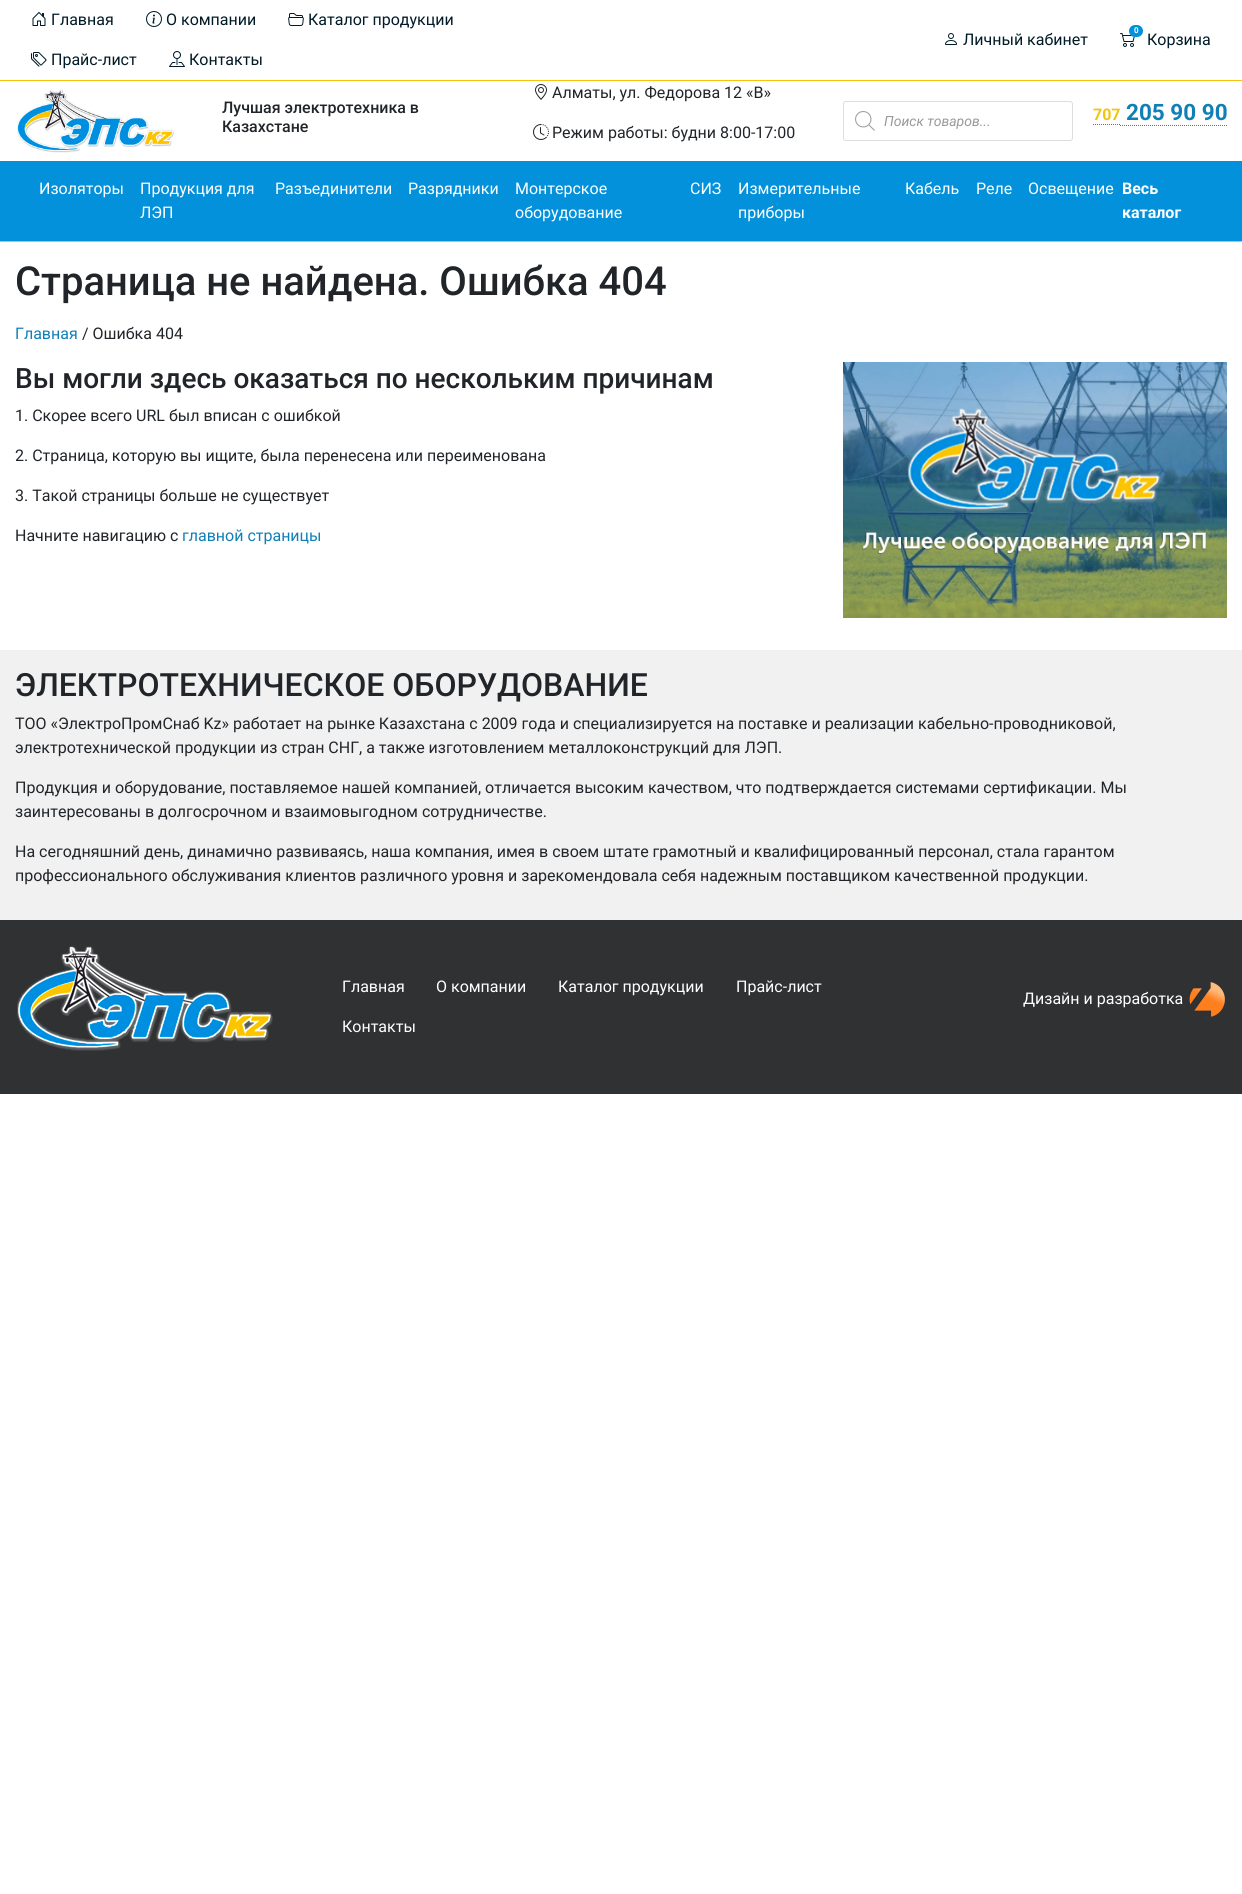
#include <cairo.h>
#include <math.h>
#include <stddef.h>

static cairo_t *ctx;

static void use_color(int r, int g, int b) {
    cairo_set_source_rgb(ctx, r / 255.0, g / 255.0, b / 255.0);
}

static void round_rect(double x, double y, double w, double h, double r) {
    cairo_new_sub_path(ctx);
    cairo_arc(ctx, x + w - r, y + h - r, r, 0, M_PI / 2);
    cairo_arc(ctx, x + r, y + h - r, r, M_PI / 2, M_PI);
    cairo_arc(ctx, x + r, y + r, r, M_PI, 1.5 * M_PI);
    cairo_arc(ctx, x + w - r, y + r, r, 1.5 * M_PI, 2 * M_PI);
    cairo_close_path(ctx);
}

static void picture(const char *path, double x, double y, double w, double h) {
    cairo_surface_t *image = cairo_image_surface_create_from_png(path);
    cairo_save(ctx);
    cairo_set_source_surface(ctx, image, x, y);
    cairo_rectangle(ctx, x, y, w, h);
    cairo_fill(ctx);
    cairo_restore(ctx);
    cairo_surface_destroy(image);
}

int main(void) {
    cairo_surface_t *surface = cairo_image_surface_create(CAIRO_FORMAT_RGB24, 1242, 1894);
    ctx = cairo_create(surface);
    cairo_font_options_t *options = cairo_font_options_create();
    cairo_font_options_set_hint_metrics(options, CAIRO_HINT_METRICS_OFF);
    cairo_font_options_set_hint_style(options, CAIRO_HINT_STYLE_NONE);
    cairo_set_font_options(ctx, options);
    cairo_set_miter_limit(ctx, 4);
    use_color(255, 255, 255);
    cairo_paint(ctx);
    use_color(245, 195, 10);
    cairo_rectangle(ctx, 0, 241, 1242, 1);
    cairo_fill(ctx);
    cairo_rectangle(ctx, 0, 80, 1242, 1);
    cairo_fill(ctx);
    picture("img1.png", 32, 12, 14, 14);
    cairo_select_font_face(ctx, "Roboto", CAIRO_FONT_SLANT_NORMAL, CAIRO_FONT_WEIGHT_NORMAL);
    cairo_set_font_size(ctx, 16);
    use_color(0, 26, 39);
    cairo_move_to(ctx, 51, 25);
    cairo_show_text(ctx, "Главная");
    picture("img2.png", 146, 11, 16, 16);
    cairo_move_to(ctx, 166, 25);
    cairo_show_text(ctx, "О компании");
    picture("img3.png", 288, 13, 16, 13);
    cairo_move_to(ctx, 308, 25);
    cairo_show_text(ctx, "Каталог продукции");
    picture("img4.png", 31, 52, 16, 15);
    cairo_move_to(ctx, 51, 65);
    cairo_show_text(ctx, "Прайс-лист");
    picture("img5.png", 169, 51, 16, 16);
    cairo_move_to(ctx, 189, 65);
    cairo_show_text(ctx, "Контакты");
    picture("img6.png", 945, 33, 12, 12);
    cairo_move_to(ctx, 963, 45);
    cairo_show_text(ctx, "Личный кабинет");
    picture("img7.png", 1120, 33, 15, 14);
    use_color(2, 145, 218);
    round_rect(1129, 25, 14, 12, 6);
    cairo_fill(ctx);
    cairo_select_font_face(ctx, "Roboto", CAIRO_FONT_SLANT_NORMAL, CAIRO_FONT_WEIGHT_BOLD);
    cairo_set_font_size(ctx, 8);
    use_color(255, 255, 255);
    cairo_move_to(ctx, 1134, 33);
    cairo_show_text(ctx, "0");
    cairo_select_font_face(ctx, "Roboto", CAIRO_FONT_SLANT_NORMAL, CAIRO_FONT_WEIGHT_NORMAL);
    cairo_set_font_size(ctx, 16);
    use_color(0, 26, 39);
    cairo_move_to(ctx, 1147, 45);
    cairo_show_text(ctx, "Корзина");
    picture("img8.png", 17, 89, 157, 64);
    cairo_select_font_face(ctx, "Roboto Medium", CAIRO_FONT_SLANT_NORMAL, CAIRO_FONT_WEIGHT_NORMAL);
    use_color(33, 37, 41);
    cairo_move_to(ctx, 222, 113);
    cairo_show_text(ctx, "Лучшая электротехника в");
    cairo_move_to(ctx, 222, 132);
    cairo_show_text(ctx, "Казахстане");
    picture("img9.png", 535, 84, 12, 16);
    cairo_select_font_face(ctx, "Roboto", CAIRO_FONT_SLANT_NORMAL, CAIRO_FONT_WEIGHT_NORMAL);
    cairo_move_to(ctx, 552, 98);
    cairo_show_text(ctx, "Алматы, ул. Федорова 12 «В»");
    picture("img10.png", 533, 124, 16, 16);
    cairo_move_to(ctx, 552, 138);
    cairo_show_text(ctx, "Режим работы: будни 8:00-17:00");
    cairo_select_font_face(ctx, "Roboto", CAIRO_FONT_SLANT_NORMAL, CAIRO_FONT_WEIGHT_BOLD);
    use_color(245, 195, 10);
    cairo_move_to(ctx, 1093, 120);
    cairo_show_text(ctx, "707");
    cairo_new_path(ctx);
    cairo_move_to(ctx, 1093, 124.5);
    cairo_line_to(ctx, 1120, 124.5);
    use_color(2, 145, 218);
    cairo_set_line_width(ctx, 1);
    cairo_set_dash(ctx, (double[]){1, 1}, 2, 0);
    cairo_stroke(ctx);
    cairo_new_path(ctx);
    cairo_move_to(ctx, 1120, 125.5);
    cairo_line_to(ctx, 1227, 125.5);
    cairo_stroke(ctx);
    cairo_set_font_size(ctx, 22.5);
    use_color(16, 127, 183);
    cairo_move_to(ctx, 1126, 120);
    cairo_show_text(ctx, "205 90 90");
    round_rect(843.5, 101.5, 229, 39, 2.5);
    use_color(221, 221, 221);
    cairo_set_dash(ctx, NULL, 0, 0);
    cairo_stroke(ctx);
    picture("img11.png", 855, 111, 20, 20);
    cairo_select_font_face(ctx, "Roboto", CAIRO_FONT_SLANT_ITALIC, CAIRO_FONT_WEIGHT_NORMAL);
    cairo_set_font_size(ctx, 14);
    use_color(153, 153, 153);
    cairo_move_to(ctx, 884, 126);
    cairo_show_text(ctx, "Поиск товаров...");
    use_color(2, 145, 218);
    cairo_rectangle(ctx, 0, 161, 1242, 80);
    cairo_fill(ctx);
    cairo_select_font_face(ctx, "Roboto", CAIRO_FONT_SLANT_NORMAL, CAIRO_FONT_WEIGHT_NORMAL);
    cairo_set_font_size(ctx, 16);
    use_color(255, 255, 255);
    cairo_move_to(ctx, 39, 194);
    cairo_show_text(ctx, "Изоляторы");
    cairo_move_to(ctx, 140, 194);
    cairo_show_text(ctx, "Продукция для");
    cairo_move_to(ctx, 140, 218);
    cairo_show_text(ctx, "ЛЭП");
    cairo_move_to(ctx, 275, 194);
    cairo_show_text(ctx, "Разъединители");
    cairo_move_to(ctx, 408, 194);
    cairo_show_text(ctx, "Разрядники");
    cairo_move_to(ctx, 515, 194);
    cairo_show_text(ctx, "Монтерское");
    cairo_move_to(ctx, 515, 218);
    cairo_show_text(ctx, "оборудование");
    cairo_move_to(ctx, 690, 194);
    cairo_show_text(ctx, "СИЗ");
    cairo_move_to(ctx, 738, 194);
    cairo_show_text(ctx, "Измерительные");
    cairo_move_to(ctx, 738, 218);
    cairo_show_text(ctx, "приборы");
    cairo_move_to(ctx, 905, 194);
    cairo_show_text(ctx, "Кабель");
    cairo_move_to(ctx, 976, 194);
    cairo_show_text(ctx, "Реле");
    cairo_move_to(ctx, 1028, 194);
    cairo_show_text(ctx, "Освещение");
    cairo_select_font_face(ctx, "Roboto", CAIRO_FONT_SLANT_NORMAL, CAIRO_FONT_WEIGHT_BOLD);
    cairo_move_to(ctx, 1122, 194);
    cairo_show_text(ctx, "Весь");
    cairo_move_to(ctx, 1122, 218);
    cairo_show_text(ctx, "каталог");
    cairo_select_font_face(ctx, "Roboto Medium", CAIRO_FONT_SLANT_NORMAL, CAIRO_FONT_WEIGHT_NORMAL);
    cairo_set_font_size(ctx, 40);
    use_color(33, 37, 41);
    cairo_move_to(ctx, 15, 295);
    cairo_show_text(ctx, "Страница не найдена. Ошибка 404");
    cairo_select_font_face(ctx, "Roboto", CAIRO_FONT_SLANT_NORMAL, CAIRO_FONT_WEIGHT_NORMAL);
    cairo_set_font_size(ctx, 16);
    use_color(16, 127, 183);
    cairo_move_to(ctx, 15, 339);
    cairo_show_text(ctx, "Главная");
    use_color(33, 37, 41);
    cairo_move_to(ctx, 82, 339);
    cairo_show_text(ctx, "/ Ошибка 404");
    cairo_select_font_face(ctx, "Roboto Medium", CAIRO_FONT_SLANT_NORMAL, CAIRO_FONT_WEIGHT_NORMAL);
    cairo_set_font_size(ctx, 28);
    cairo_move_to(ctx, 15, 388);
    cairo_show_text(ctx, "Вы могли здесь оказаться по нескольким причинам");
    cairo_select_font_face(ctx, "Roboto", CAIRO_FONT_SLANT_NORMAL, CAIRO_FONT_WEIGHT_NORMAL);
    cairo_set_font_size(ctx, 16);
    cairo_move_to(ctx, 15, 421);
    cairo_show_text(ctx, "1. Скорее всего URL был вписан с ошибкой");
    cairo_move_to(ctx, 15, 461);
    cairo_show_text(ctx, "2. Страница, которую вы ищите, была перенесена или переименована");
    cairo_move_to(ctx, 15, 501);
    cairo_show_text(ctx, "3. Такой страницы больше не существует");
    cairo_move_to(ctx, 15, 541);
    cairo_show_text(ctx, "Начните навигацию с");
    use_color(16, 127, 183);
    cairo_move_to(ctx, 182, 541);
    cairo_show_text(ctx, "главной страницы");
    picture("img12.png", 843, 362, 384, 256);
    use_color(241, 241, 241);
    cairo_rectangle(ctx, 0, 650, 1242, 270);
    cairo_fill(ctx);
    cairo_select_font_face(ctx, "Roboto Medium", CAIRO_FONT_SLANT_NORMAL, CAIRO_FONT_WEIGHT_NORMAL);
    cairo_set_font_size(ctx, 32);
    use_color(33, 37, 41);
    cairo_move_to(ctx, 15, 696);
    cairo_show_text(ctx, "ЭЛЕКТРОТЕХНИЧЕСКОЕ ОБОРУДОВАНИЕ");
    cairo_select_font_face(ctx, "Roboto", CAIRO_FONT_SLANT_NORMAL, CAIRO_FONT_WEIGHT_NORMAL);
    cairo_set_font_size(ctx, 16);
    cairo_move_to(ctx, 15, 729);
    cairo_show_text(ctx, "ТОО «ЭлектроПромСнаб Kz» работает на рынке Казахстана с 2009 года и специализируется на поставке и реализации кабельно-проводниковой,");
    cairo_move_to(ctx, 15, 753);
    cairo_show_text(ctx, "электротехнической продукции из стран СНГ, а также изготовлением металлоконструкций для ЛЭП.");
    cairo_move_to(ctx, 15, 793);
    cairo_show_text(ctx, "Продукция и оборудование, поставляемое нашей компанией, отличается высоким качеством, что подтверждается системами сертификации. Мы");
    cairo_move_to(ctx, 15, 817);
    cairo_show_text(ctx, "заинтересованы в долгосрочном и взаимовыгодном сотрудничестве.");
    cairo_move_to(ctx, 15, 857);
    cairo_show_text(ctx, "На сегодняшний день, динамично развиваясь, наша компания, имея в своем штате грамотный и квалифицированный персонал, стала гарантом");
    cairo_move_to(ctx, 15, 881);
    cairo_show_text(ctx, "профессионального обслуживания клиентов различного уровня и зарекомендовала себя надежным поставщиком качественной продукции.");
    use_color(48, 49, 51);
    cairo_rectangle(ctx, 0, 920, 1242, 174);
    cairo_fill(ctx);
    picture("img13.png", 17, 946, 256, 105);
    use_color(255, 255, 255);
    cairo_move_to(ctx, 342, 992);
    cairo_show_text(ctx, "Главная");
    cairo_move_to(ctx, 436, 992);
    cairo_show_text(ctx, "О компании");
    cairo_move_to(ctx, 558, 992);
    cairo_show_text(ctx, "Каталог продукции");
    cairo_move_to(ctx, 736, 992);
    cairo_show_text(ctx, "Прайс-лист");
    cairo_move_to(ctx, 342, 1032);
    cairo_show_text(ctx, "Контакты");
    cairo_move_to(ctx, 1023, 1004);
    cairo_show_text(ctx, "Дизайн и разработка");
    picture("img14.png", 1189, 981, 36, 37);
    cairo_surface_write_to_png(surface, "result.png");
    cairo_font_options_destroy(options);
    cairo_destroy(ctx);
    cairo_surface_destroy(surface);
    return 0;
}
